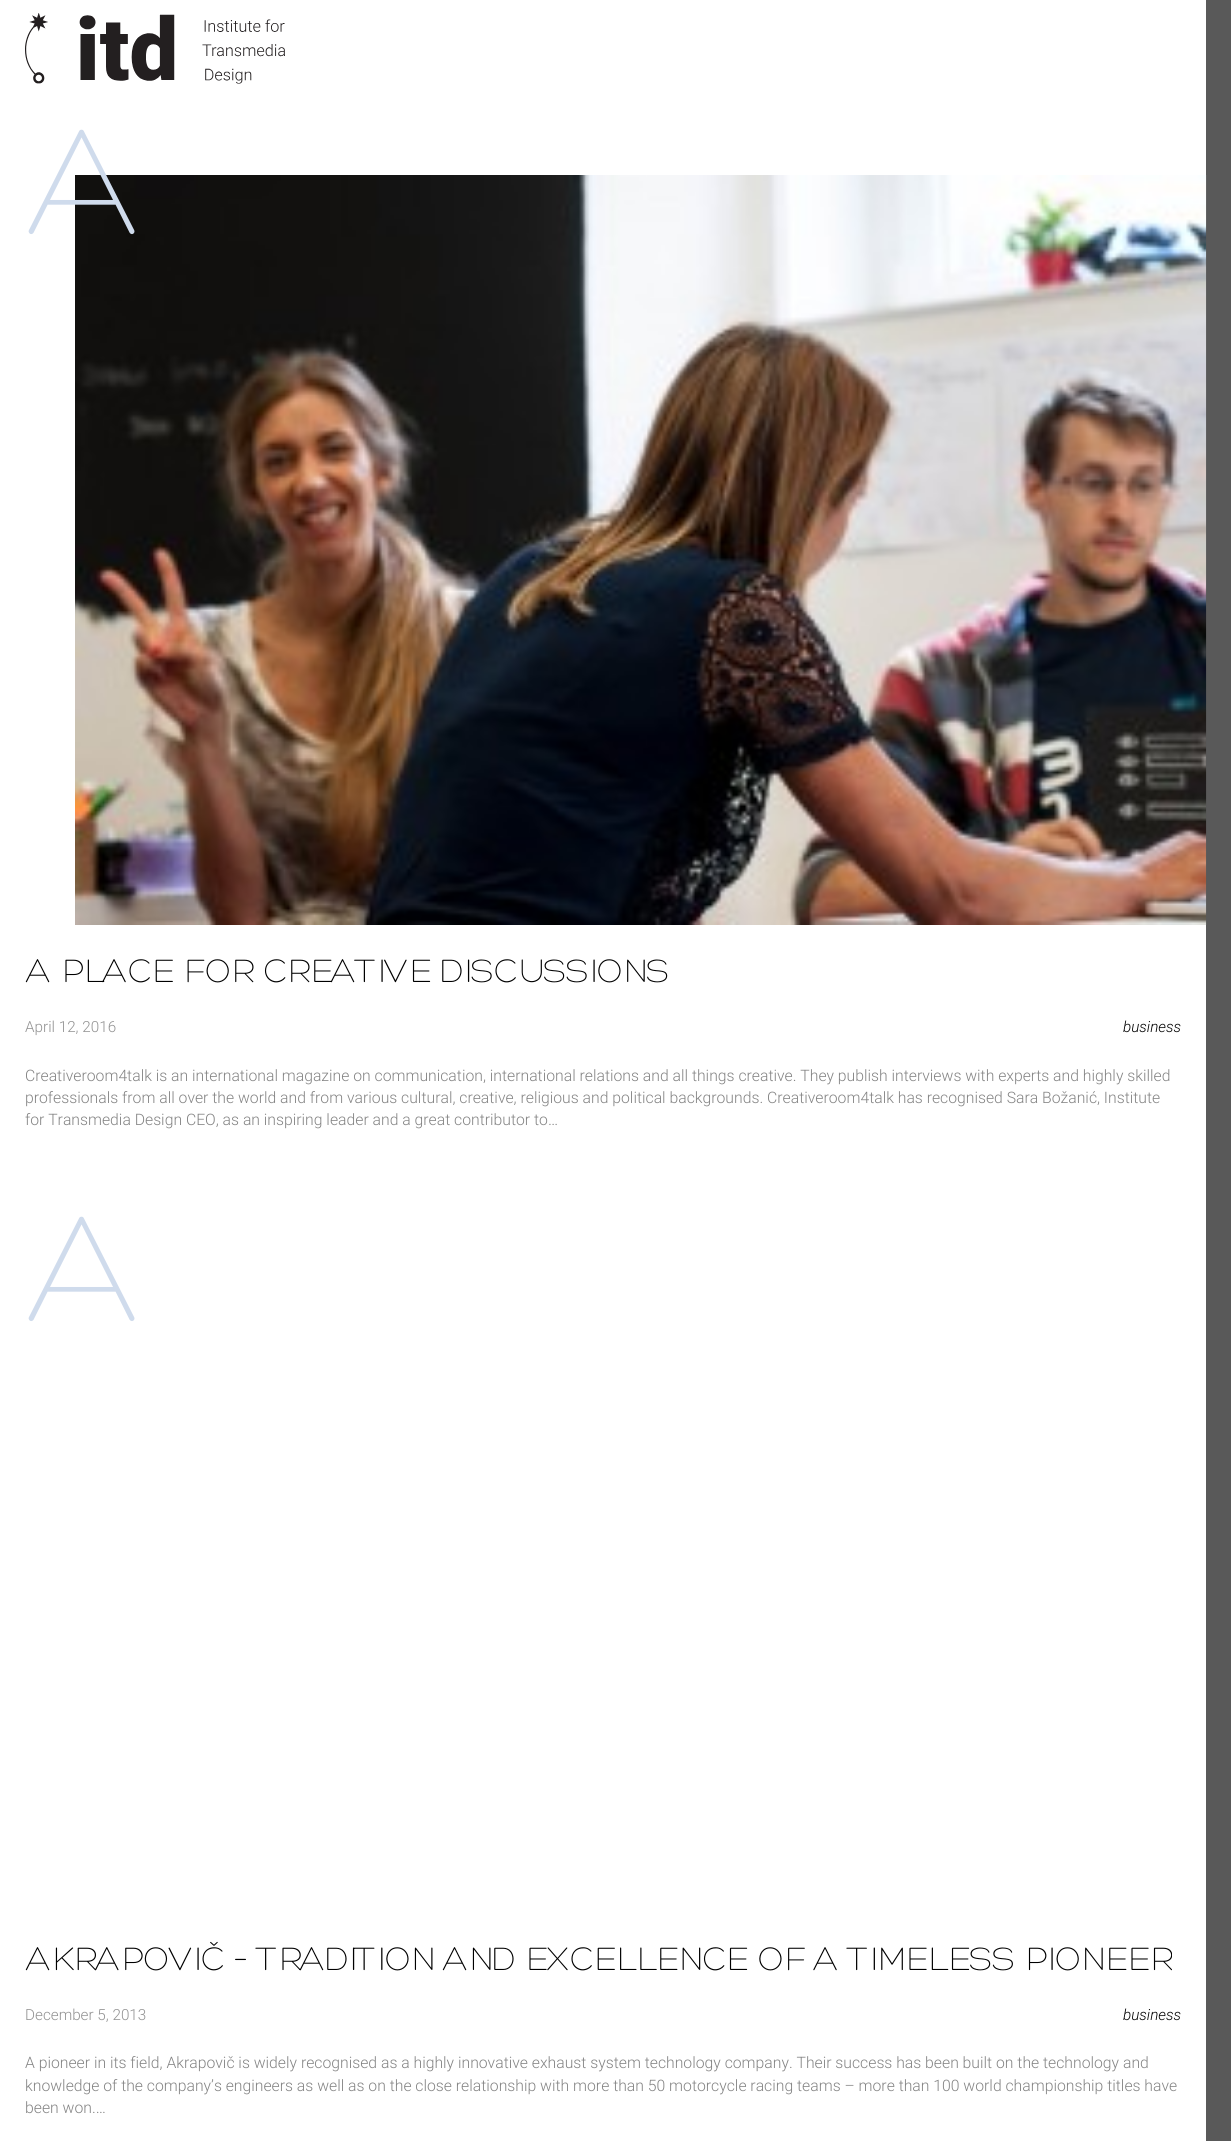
#include <cairo.h>
#include <math.h>
#include <stddef.h>

static cairo_t *ctx;

static void use_color(int r, int g, int b) {
    cairo_set_source_rgb(ctx, r / 255.0, g / 255.0, b / 255.0);
}

static void picture(const char *path, double x, double y, double w, double h) {
    cairo_surface_t *image = cairo_image_surface_create_from_png(path);
    cairo_save(ctx);
    cairo_set_source_surface(ctx, image, x, y);
    cairo_rectangle(ctx, x, y, w, h);
    cairo_fill(ctx);
    cairo_restore(ctx);
    cairo_surface_destroy(image);
}

int main(void) {
    cairo_surface_t *surface = cairo_image_surface_create(CAIRO_FORMAT_RGB24, 1231, 2141);
    ctx = cairo_create(surface);
    cairo_font_options_t *options = cairo_font_options_create();
    cairo_font_options_set_hint_metrics(options, CAIRO_HINT_METRICS_OFF);
    cairo_font_options_set_hint_style(options, CAIRO_HINT_STYLE_NONE);
    cairo_set_font_options(ctx, options);
    cairo_set_miter_limit(ctx, 4);
    use_color(255, 255, 255);
    cairo_paint(ctx);
    use_color(89, 89, 89);
    cairo_rectangle(ctx, 1206, 0, 25, 2141);
    cairo_fill(ctx);
    picture("img1.png", 25, 13, 260, 71);
    picture("img2.png", 75, 175, 1132, 750);
    cairo_select_font_face(ctx, "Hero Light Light", CAIRO_FONT_SLANT_NORMAL, CAIRO_FONT_WEIGHT_NORMAL);
    cairo_set_font_size(ctx, 158);
    use_color(207, 219, 236);
    cairo_move_to(ctx, 25, 233);
    cairo_show_text(ctx, "A");
    cairo_set_font_size(ctx, 35);
    use_color(0, 0, 0);
    cairo_move_to(ctx, 25, 982);
    cairo_show_text(ctx, "A PLACE FOR CREATIVE DISCUSSIONS");
    cairo_select_font_face(ctx, "Roboto Light", CAIRO_FONT_SLANT_NORMAL, CAIRO_FONT_WEIGHT_NORMAL);
    cairo_set_font_size(ctx, 15.25);
    use_color(146, 146, 146);
    cairo_move_to(ctx, 25, 1032);
    cairo_show_text(ctx, "April 12, 2016");
    cairo_select_font_face(ctx, "Roboto Light", CAIRO_FONT_SLANT_ITALIC, CAIRO_FONT_WEIGHT_NORMAL);
    use_color(0, 0, 0);
    cairo_move_to(ctx, 1123, 1032);
    cairo_show_text(ctx, "business");
    cairo_select_font_face(ctx, "Roboto Light", CAIRO_FONT_SLANT_NORMAL, CAIRO_FONT_WEIGHT_NORMAL);
    cairo_set_font_size(ctx, 15.75);
    use_color(132, 132, 132);
    cairo_move_to(ctx, 25, 1081);
    cairo_show_text(ctx, "Creativeroom4talk is an international magazine on communication, international relations and all things creative. They publish interviews with experts and highly skilled");
    cairo_move_to(ctx, 25, 1103);
    cairo_show_text(ctx, "professionals from all over the world and from various cultural, creative, religious and political backgrounds. Creativeroom4talk has recognised Sara Božanić, Institute");
    cairo_move_to(ctx, 25, 1125);
    cairo_show_text(ctx, "for Transmedia Design CEO, as an inspiring leader and a great contributor to…");
    cairo_select_font_face(ctx, "Hero Light Light", CAIRO_FONT_SLANT_NORMAL, CAIRO_FONT_WEIGHT_NORMAL);
    cairo_set_font_size(ctx, 158);
    use_color(207, 219, 236);
    cairo_move_to(ctx, 25, 1320);
    cairo_show_text(ctx, "A");
    cairo_set_font_size(ctx, 35);
    use_color(0, 0, 0);
    cairo_move_to(ctx, 25, 1970);
    cairo_show_text(ctx, "AKRAPOVIČ – TRADITION AND EXCELLENCE OF A TIMELESS PIONEER");
    cairo_select_font_face(ctx, "Roboto Light", CAIRO_FONT_SLANT_NORMAL, CAIRO_FONT_WEIGHT_NORMAL);
    cairo_set_font_size(ctx, 15.25);
    use_color(146, 146, 146);
    cairo_move_to(ctx, 25, 2020);
    cairo_show_text(ctx, "December 5, 2013");
    cairo_select_font_face(ctx, "Roboto Light", CAIRO_FONT_SLANT_ITALIC, CAIRO_FONT_WEIGHT_NORMAL);
    use_color(0, 0, 0);
    cairo_move_to(ctx, 1123, 2020);
    cairo_show_text(ctx, "business");
    cairo_select_font_face(ctx, "Roboto Light", CAIRO_FONT_SLANT_NORMAL, CAIRO_FONT_WEIGHT_NORMAL);
    cairo_set_font_size(ctx, 15.75);
    use_color(132, 132, 132);
    cairo_move_to(ctx, 25, 2068);
    cairo_show_text(ctx, "A pioneer in its field, Akrapovič is widely recognised as a highly innovative exhaust system technology company. Their success has been built on the technology and");
    cairo_move_to(ctx, 25, 2091);
    cairo_show_text(ctx, "knowledge of the company’s engineers as well as on the close relationship with more than 50 motorcycle racing teams – more than 100 world championship titles have");
    cairo_move_to(ctx, 25, 2113);
    cairo_show_text(ctx, "been won.…");
    cairo_surface_write_to_png(surface, "result.png");
    cairo_font_options_destroy(options);
    cairo_destroy(ctx);
    cairo_surface_destroy(surface);
    return 0;
}
